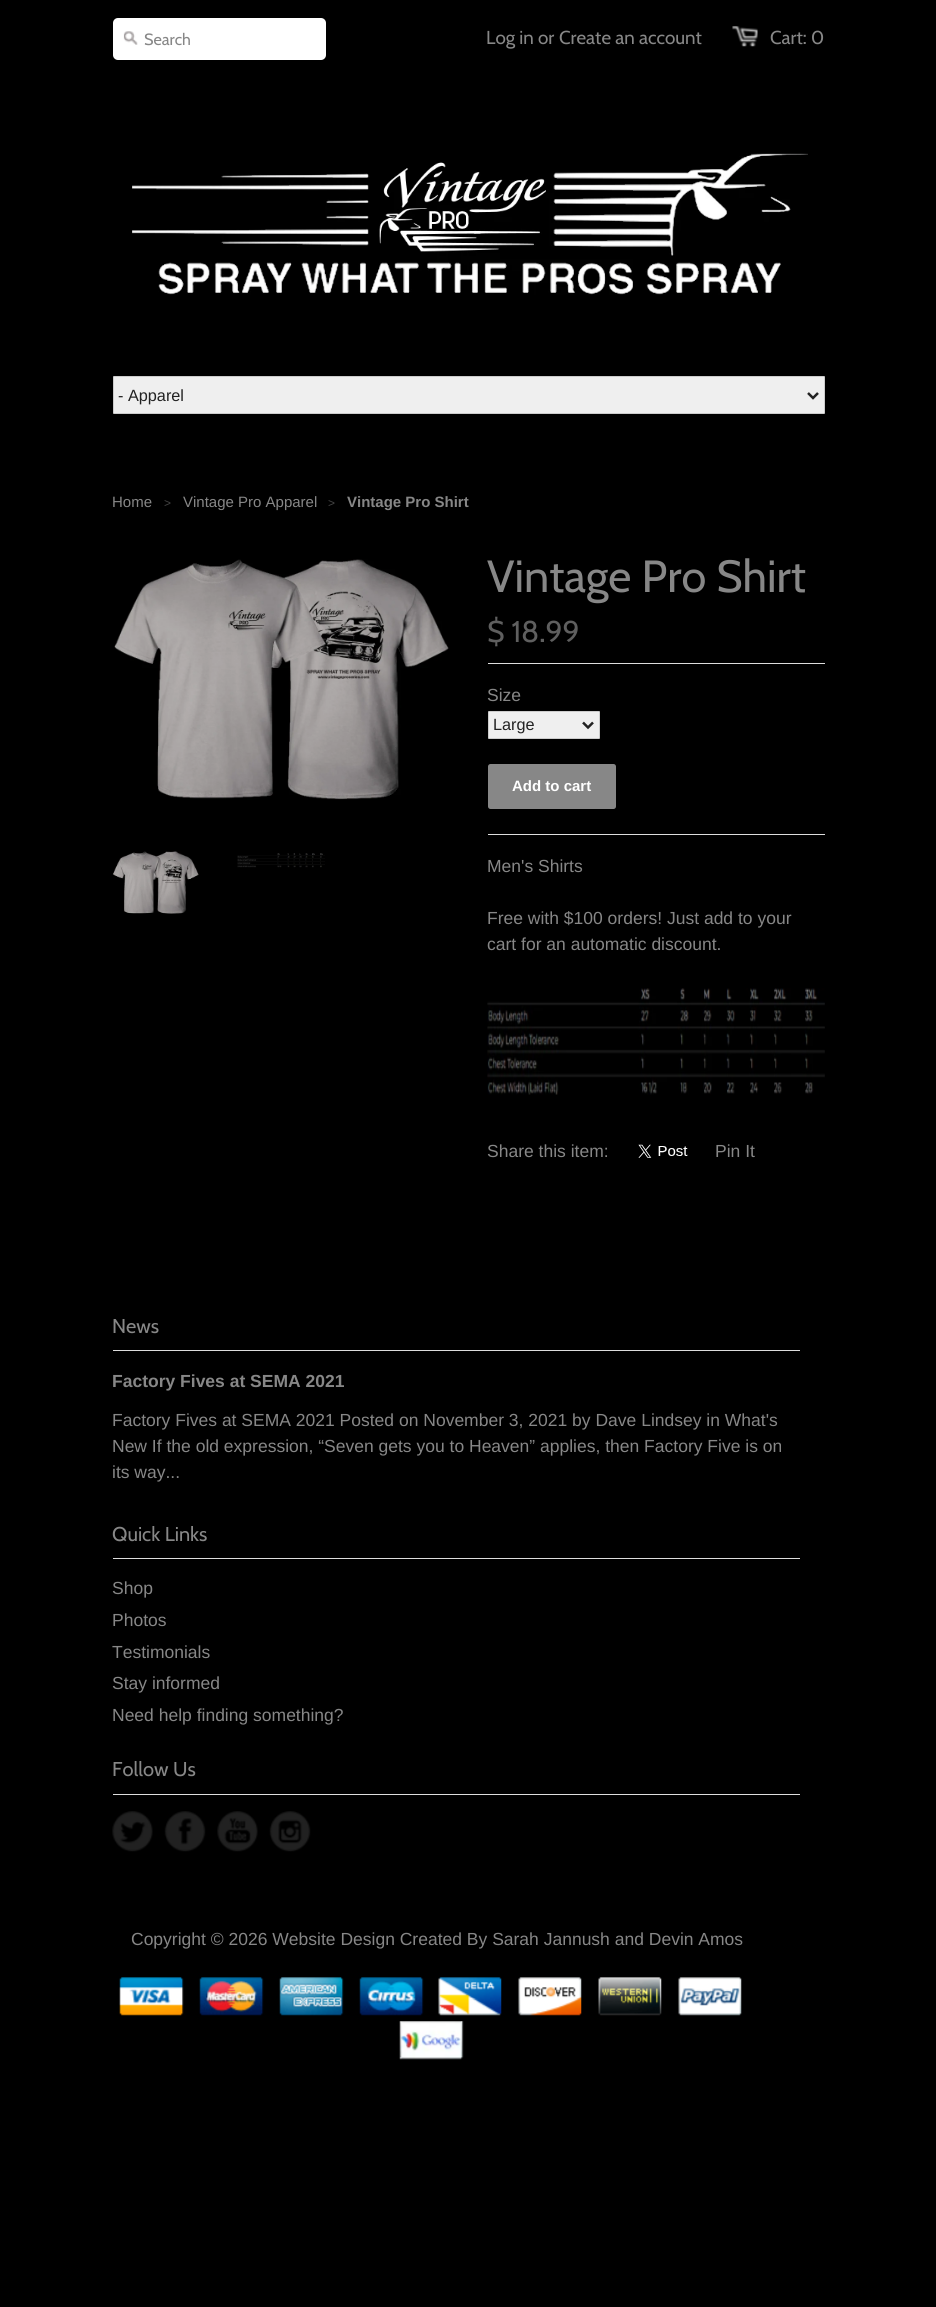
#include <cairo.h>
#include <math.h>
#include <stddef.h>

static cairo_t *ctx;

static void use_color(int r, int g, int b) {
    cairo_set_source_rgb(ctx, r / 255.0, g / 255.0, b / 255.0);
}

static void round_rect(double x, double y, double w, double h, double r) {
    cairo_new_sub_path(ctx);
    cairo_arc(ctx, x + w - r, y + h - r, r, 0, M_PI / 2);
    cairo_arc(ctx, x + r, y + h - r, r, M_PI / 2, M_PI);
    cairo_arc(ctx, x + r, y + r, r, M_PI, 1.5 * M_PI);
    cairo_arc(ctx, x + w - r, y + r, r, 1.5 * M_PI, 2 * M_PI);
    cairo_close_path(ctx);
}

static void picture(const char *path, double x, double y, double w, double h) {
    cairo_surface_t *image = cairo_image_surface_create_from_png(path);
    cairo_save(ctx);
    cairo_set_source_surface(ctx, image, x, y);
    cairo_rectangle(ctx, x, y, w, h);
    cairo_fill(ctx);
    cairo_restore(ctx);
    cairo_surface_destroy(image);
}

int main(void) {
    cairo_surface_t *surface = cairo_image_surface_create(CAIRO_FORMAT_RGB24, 936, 2307);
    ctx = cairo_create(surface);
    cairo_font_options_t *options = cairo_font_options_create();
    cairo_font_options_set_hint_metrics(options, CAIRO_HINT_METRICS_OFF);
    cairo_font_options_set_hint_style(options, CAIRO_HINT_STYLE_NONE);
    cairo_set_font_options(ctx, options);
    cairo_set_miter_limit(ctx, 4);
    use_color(0, 0, 0);
    cairo_paint(ctx);
    use_color(255, 255, 255);
    round_rect(113, 18, 213, 42, 5);
    cairo_fill(ctx);
    picture("img1.png", 123, 31, 15, 14);
    cairo_select_font_face(ctx, "Cabin", CAIRO_FONT_SLANT_NORMAL, CAIRO_FONT_WEIGHT_NORMAL);
    cairo_set_font_size(ctx, 16.25);
    use_color(135, 135, 135);
    cairo_move_to(ctx, 144, 45);
    cairo_show_text(ctx, "Search");
    cairo_set_font_size(ctx, 18.75);
    cairo_move_to(ctx, 486, 44);
    cairo_show_text(ctx, "Log in");
    cairo_move_to(ctx, 538, 44);
    cairo_show_text(ctx, "or");
    cairo_move_to(ctx, 559, 44);
    cairo_show_text(ctx, "Create an account");
    picture("img2.png", 732, 26, 26, 21);
    cairo_move_to(ctx, 770, 44);
    cairo_show_text(ctx, "Cart: 0");
    picture("img3.png", 132, 153, 676, 142);
    use_color(239, 239, 239);
    round_rect(113.5, 376.5, 711, 37, 0.5);
    cairo_fill_preserve(ctx);
    use_color(204, 204, 204);
    cairo_set_line_width(ctx, 1);
    cairo_stroke(ctx);
    cairo_new_path(ctx);
    cairo_move_to(ctx, 808, 393);
    cairo_line_to(ctx, 813, 398);
    cairo_line_to(ctx, 818, 393);
    use_color(34, 34, 34);
    cairo_set_line_width(ctx, 2.5);
    cairo_stroke(ctx);
    cairo_select_font_face(ctx, "Liberation Sans", CAIRO_FONT_SLANT_NORMAL, CAIRO_FONT_WEIGHT_NORMAL);
    cairo_set_font_size(ctx, 16.25);
    cairo_move_to(ctx, 118, 401);
    cairo_show_text(ctx, "- Apparel");
    cairo_set_font_size(ctx, 15);
    use_color(135, 135, 135);
    cairo_move_to(ctx, 112, 507);
    cairo_show_text(ctx, "Home");
    cairo_set_font_size(ctx, 12);
    use_color(68, 68, 68);
    cairo_move_to(ctx, 164, 507);
    cairo_show_text(ctx, ">");
    cairo_set_font_size(ctx, 15);
    use_color(135, 135, 135);
    cairo_move_to(ctx, 183, 507);
    cairo_show_text(ctx, "Vintage Pro Apparel");
    cairo_set_font_size(ctx, 12);
    use_color(68, 68, 68);
    cairo_move_to(ctx, 328, 507);
    cairo_show_text(ctx, ">");
    cairo_select_font_face(ctx, "Liberation Sans", CAIRO_FONT_SLANT_NORMAL, CAIRO_FONT_WEIGHT_BOLD);
    cairo_set_font_size(ctx, 15);
    use_color(135, 135, 135);
    cairo_move_to(ctx, 347, 507);
    cairo_show_text(ctx, "Vintage Pro Shirt");
    picture("img4.png", 114, 559, 335, 241);
    picture("img5.png", 112, 851, 87, 63);
    picture("img6.png", 237, 853, 88, 15);
    cairo_select_font_face(ctx, "Cabin", CAIRO_FONT_SLANT_NORMAL, CAIRO_FONT_WEIGHT_NORMAL);
    cairo_set_font_size(ctx, 45);
    cairo_move_to(ctx, 487, 592);
    cairo_show_text(ctx, "Vintage Pro Shirt");
    cairo_set_font_size(ctx, 30);
    use_color(95, 95, 95);
    cairo_move_to(ctx, 487, 642);
    cairo_show_text(ctx, "$ 18.99");
    use_color(221, 221, 221);
    cairo_rectangle(ctx, 488, 663, 337, 1);
    cairo_fill(ctx);
    cairo_rectangle(ctx, 488, 834, 337, 1);
    cairo_fill(ctx);
    cairo_select_font_face(ctx, "Liberation Sans", CAIRO_FONT_SLANT_NORMAL, CAIRO_FONT_WEIGHT_NORMAL);
    cairo_set_font_size(ctx, 17.5);
    use_color(135, 135, 135);
    cairo_move_to(ctx, 487, 701);
    cairo_show_text(ctx, "Size");
    use_color(239, 239, 239);
    round_rect(488.5, 711.5, 111, 27, 0.5);
    cairo_fill_preserve(ctx);
    use_color(204, 204, 204);
    cairo_set_line_width(ctx, 1);
    cairo_stroke(ctx);
    cairo_new_path(ctx);
    cairo_move_to(ctx, 583, 722.5);
    cairo_line_to(ctx, 588, 727.5);
    cairo_line_to(ctx, 593, 722.5);
    use_color(34, 34, 34);
    cairo_set_line_width(ctx, 2.5);
    cairo_stroke(ctx);
    cairo_set_font_size(ctx, 16.25);
    cairo_move_to(ctx, 493, 730);
    cairo_show_text(ctx, "Large");
    use_color(135, 135, 135);
    round_rect(488, 764, 128, 45, 2.5);
    cairo_fill(ctx);
    cairo_select_font_face(ctx, "Liberation Sans", CAIRO_FONT_SLANT_NORMAL, CAIRO_FONT_WEIGHT_BOLD);
    cairo_set_font_size(ctx, 15);
    use_color(255, 255, 255);
    cairo_move_to(ctx, 512, 791);
    cairo_show_text(ctx, "Add to cart");
    cairo_select_font_face(ctx, "Liberation Sans", CAIRO_FONT_SLANT_NORMAL, CAIRO_FONT_WEIGHT_NORMAL);
    cairo_set_font_size(ctx, 17.5);
    use_color(135, 135, 135);
    cairo_move_to(ctx, 487, 872);
    cairo_show_text(ctx, "Men's Shirts");
    cairo_move_to(ctx, 487, 924);
    cairo_show_text(ctx, "Free with $100 orders! Just add to your");
    cairo_move_to(ctx, 487, 950);
    cairo_show_text(ctx, "cart for an automatic discount.");
    picture("img7.png", 487, 988, 338, 107);
    cairo_move_to(ctx, 487, 1157);
    cairo_show_text(ctx, "Share this item:");
    picture("img8.png", 638, 1144, 50, 14);
    cairo_move_to(ctx, 715, 1157);
    cairo_show_text(ctx, "Pin It");
    use_color(221, 221, 221);
    cairo_rectangle(ctx, 113, 1350, 687, 1);
    cairo_fill(ctx);
    cairo_select_font_face(ctx, "Cabin", CAIRO_FONT_SLANT_NORMAL, CAIRO_FONT_WEIGHT_NORMAL);
    cairo_set_font_size(ctx, 20);
    use_color(135, 135, 135);
    cairo_move_to(ctx, 112, 1333);
    cairo_show_text(ctx, "News");
    cairo_select_font_face(ctx, "Liberation Sans", CAIRO_FONT_SLANT_NORMAL, CAIRO_FONT_WEIGHT_BOLD);
    cairo_set_font_size(ctx, 17.5);
    cairo_move_to(ctx, 112, 1387);
    cairo_show_text(ctx, "Factory Fives at SEMA 2021");
    cairo_select_font_face(ctx, "Liberation Sans", CAIRO_FONT_SLANT_NORMAL, CAIRO_FONT_WEIGHT_NORMAL);
    cairo_move_to(ctx, 112, 1426);
    cairo_show_text(ctx, "Factory Fives at SEMA 2021 Posted on November 3, 2021 by Dave Lindsey in What's");
    cairo_move_to(ctx, 112, 1452);
    cairo_show_text(ctx, "New If the old expression, “Seven gets you to Heaven” applies, then Factory Five is on");
    cairo_move_to(ctx, 112, 1478);
    cairo_show_text(ctx, "its way...");
    use_color(221, 221, 221);
    cairo_rectangle(ctx, 113, 1558, 687, 1);
    cairo_fill(ctx);
    cairo_select_font_face(ctx, "Cabin", CAIRO_FONT_SLANT_NORMAL, CAIRO_FONT_WEIGHT_NORMAL);
    cairo_set_font_size(ctx, 20);
    use_color(135, 135, 135);
    cairo_move_to(ctx, 112, 1541);
    cairo_show_text(ctx, "Quick Links");
    cairo_select_font_face(ctx, "Liberation Sans", CAIRO_FONT_SLANT_NORMAL, CAIRO_FONT_WEIGHT_NORMAL);
    cairo_set_font_size(ctx, 17.5);
    cairo_move_to(ctx, 112, 1594);
    cairo_show_text(ctx, "Shop");
    cairo_move_to(ctx, 112, 1626);
    cairo_show_text(ctx, "Photos");
    cairo_move_to(ctx, 112, 1658);
    cairo_show_text(ctx, "Testimonials");
    cairo_move_to(ctx, 112, 1689);
    cairo_show_text(ctx, "Stay informed");
    cairo_move_to(ctx, 112, 1721);
    cairo_show_text(ctx, "Need help finding something?");
    use_color(221, 221, 221);
    cairo_rectangle(ctx, 113, 1794, 687, 1);
    cairo_fill(ctx);
    cairo_select_font_face(ctx, "Cabin", CAIRO_FONT_SLANT_NORMAL, CAIRO_FONT_WEIGHT_NORMAL);
    cairo_set_font_size(ctx, 20);
    use_color(135, 135, 135);
    cairo_move_to(ctx, 112, 1776);
    cairo_show_text(ctx, "Follow Us");
    picture("img9.png", 112, 1811, 41, 41);
    picture("img10.png", 164, 1811, 42, 41);
    picture("img11.png", 217, 1811, 41, 41);
    picture("img12.png", 269, 1811, 42, 41);
    cairo_select_font_face(ctx, "Liberation Sans", CAIRO_FONT_SLANT_NORMAL, CAIRO_FONT_WEIGHT_NORMAL);
    cairo_set_font_size(ctx, 17.5);
    cairo_move_to(ctx, 131, 1945);
    cairo_show_text(ctx, "Copyright © 2026 Website Design Created By Sarah Jannush and Devin Amos");
    picture("img13.png", 119, 1977, 65, 39);
    picture("img14.png", 199, 1977, 65, 39);
    picture("img15.png", 279, 1977, 65, 39);
    picture("img16.png", 359, 1977, 65, 39);
    picture("img17.png", 438, 1977, 64, 39);
    picture("img18.png", 518, 1977, 64, 39);
    picture("img19.png", 598, 1977, 64, 39);
    picture("img20.png", 678, 1977, 64, 39);
    picture("img21.png", 399, 2021, 65, 39);
    cairo_surface_write_to_png(surface, "result.png");
    cairo_font_options_destroy(options);
    cairo_destroy(ctx);
    cairo_surface_destroy(surface);
    return 0;
}
